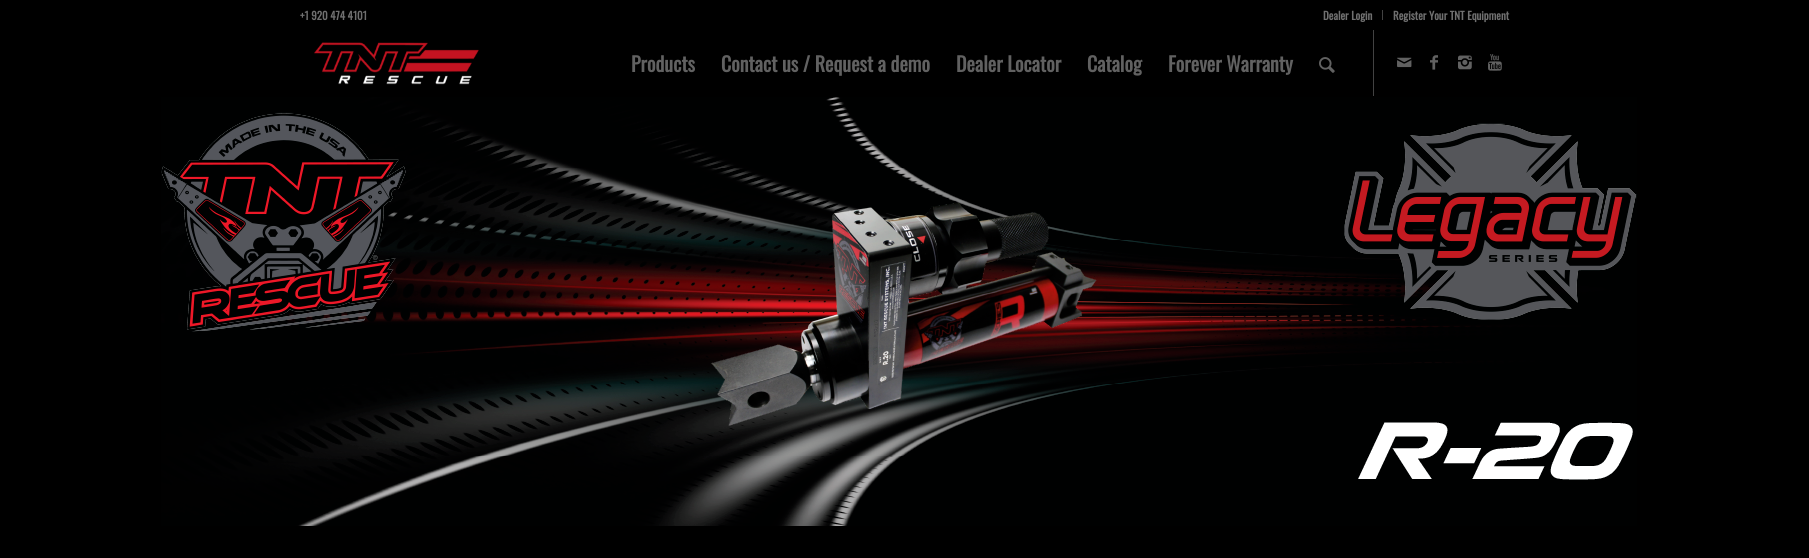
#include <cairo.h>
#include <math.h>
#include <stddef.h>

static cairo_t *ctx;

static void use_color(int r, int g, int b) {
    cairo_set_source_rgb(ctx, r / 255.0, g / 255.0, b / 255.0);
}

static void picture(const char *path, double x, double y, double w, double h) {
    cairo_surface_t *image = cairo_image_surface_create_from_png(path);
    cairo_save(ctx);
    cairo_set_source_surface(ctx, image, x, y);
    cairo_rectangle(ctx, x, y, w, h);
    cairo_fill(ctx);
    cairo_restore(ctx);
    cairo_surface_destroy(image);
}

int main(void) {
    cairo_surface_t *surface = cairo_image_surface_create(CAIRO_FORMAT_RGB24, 1809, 558);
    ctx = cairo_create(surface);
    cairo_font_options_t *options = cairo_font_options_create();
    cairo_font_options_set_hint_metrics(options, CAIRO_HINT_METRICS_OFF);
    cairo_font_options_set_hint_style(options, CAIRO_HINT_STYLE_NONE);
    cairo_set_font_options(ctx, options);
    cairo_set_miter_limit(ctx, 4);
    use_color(0, 0, 0);
    cairo_paint(ctx);
    cairo_select_font_face(ctx, "Oswald", CAIRO_FONT_SLANT_NORMAL, CAIRO_FONT_WEIGHT_BOLD);
    cairo_set_font_size(ctx, 11);
    use_color(112, 112, 112);
    cairo_move_to(ctx, 300, 20);
    cairo_show_text(ctx, "+1 920 474 4101");
    use_color(66, 66, 66);
    cairo_rectangle(ctx, 1382, 10, 1, 10);
    cairo_fill(ctx);
    use_color(112, 112, 112);
    cairo_move_to(ctx, 1323, 20);
    cairo_show_text(ctx, "Dealer Login");
    cairo_move_to(ctx, 1393, 20);
    cairo_show_text(ctx, "Register Your TNT Equipment");
    picture("img1.png", 314, 42, 165, 43);
    use_color(66, 66, 66);
    cairo_rectangle(ctx, 1373, 30, 1, 66);
    cairo_fill(ctx);
    cairo_set_font_size(ctx, 20);
    use_color(97, 97, 97);
    cairo_move_to(ctx, 631, 72);
    cairo_show_text(ctx, "Products");
    cairo_move_to(ctx, 721, 72);
    cairo_show_text(ctx, "Contact us / Request a demo");
    cairo_move_to(ctx, 956, 72);
    cairo_show_text(ctx, "Dealer Locator");
    cairo_move_to(ctx, 1087, 72);
    cairo_show_text(ctx, "Catalog");
    cairo_move_to(ctx, 1168, 72);
    cairo_show_text(ctx, "Forever Warranty");
    picture("img2.png", 1319, 57, 16, 16);
    picture("img3.png", 1397, 57, 15, 11);
    picture("img4.png", 1430, 55, 8, 15);
    picture("img5.png", 1458, 55, 14, 15);
    picture("img6.png", 1488, 54, 14, 17);
    picture("img7.png", 161, 97, 1476, 429);
    cairo_surface_write_to_png(surface, "result.png");
    cairo_font_options_destroy(options);
    cairo_destroy(ctx);
    cairo_surface_destroy(surface);
    return 0;
}
